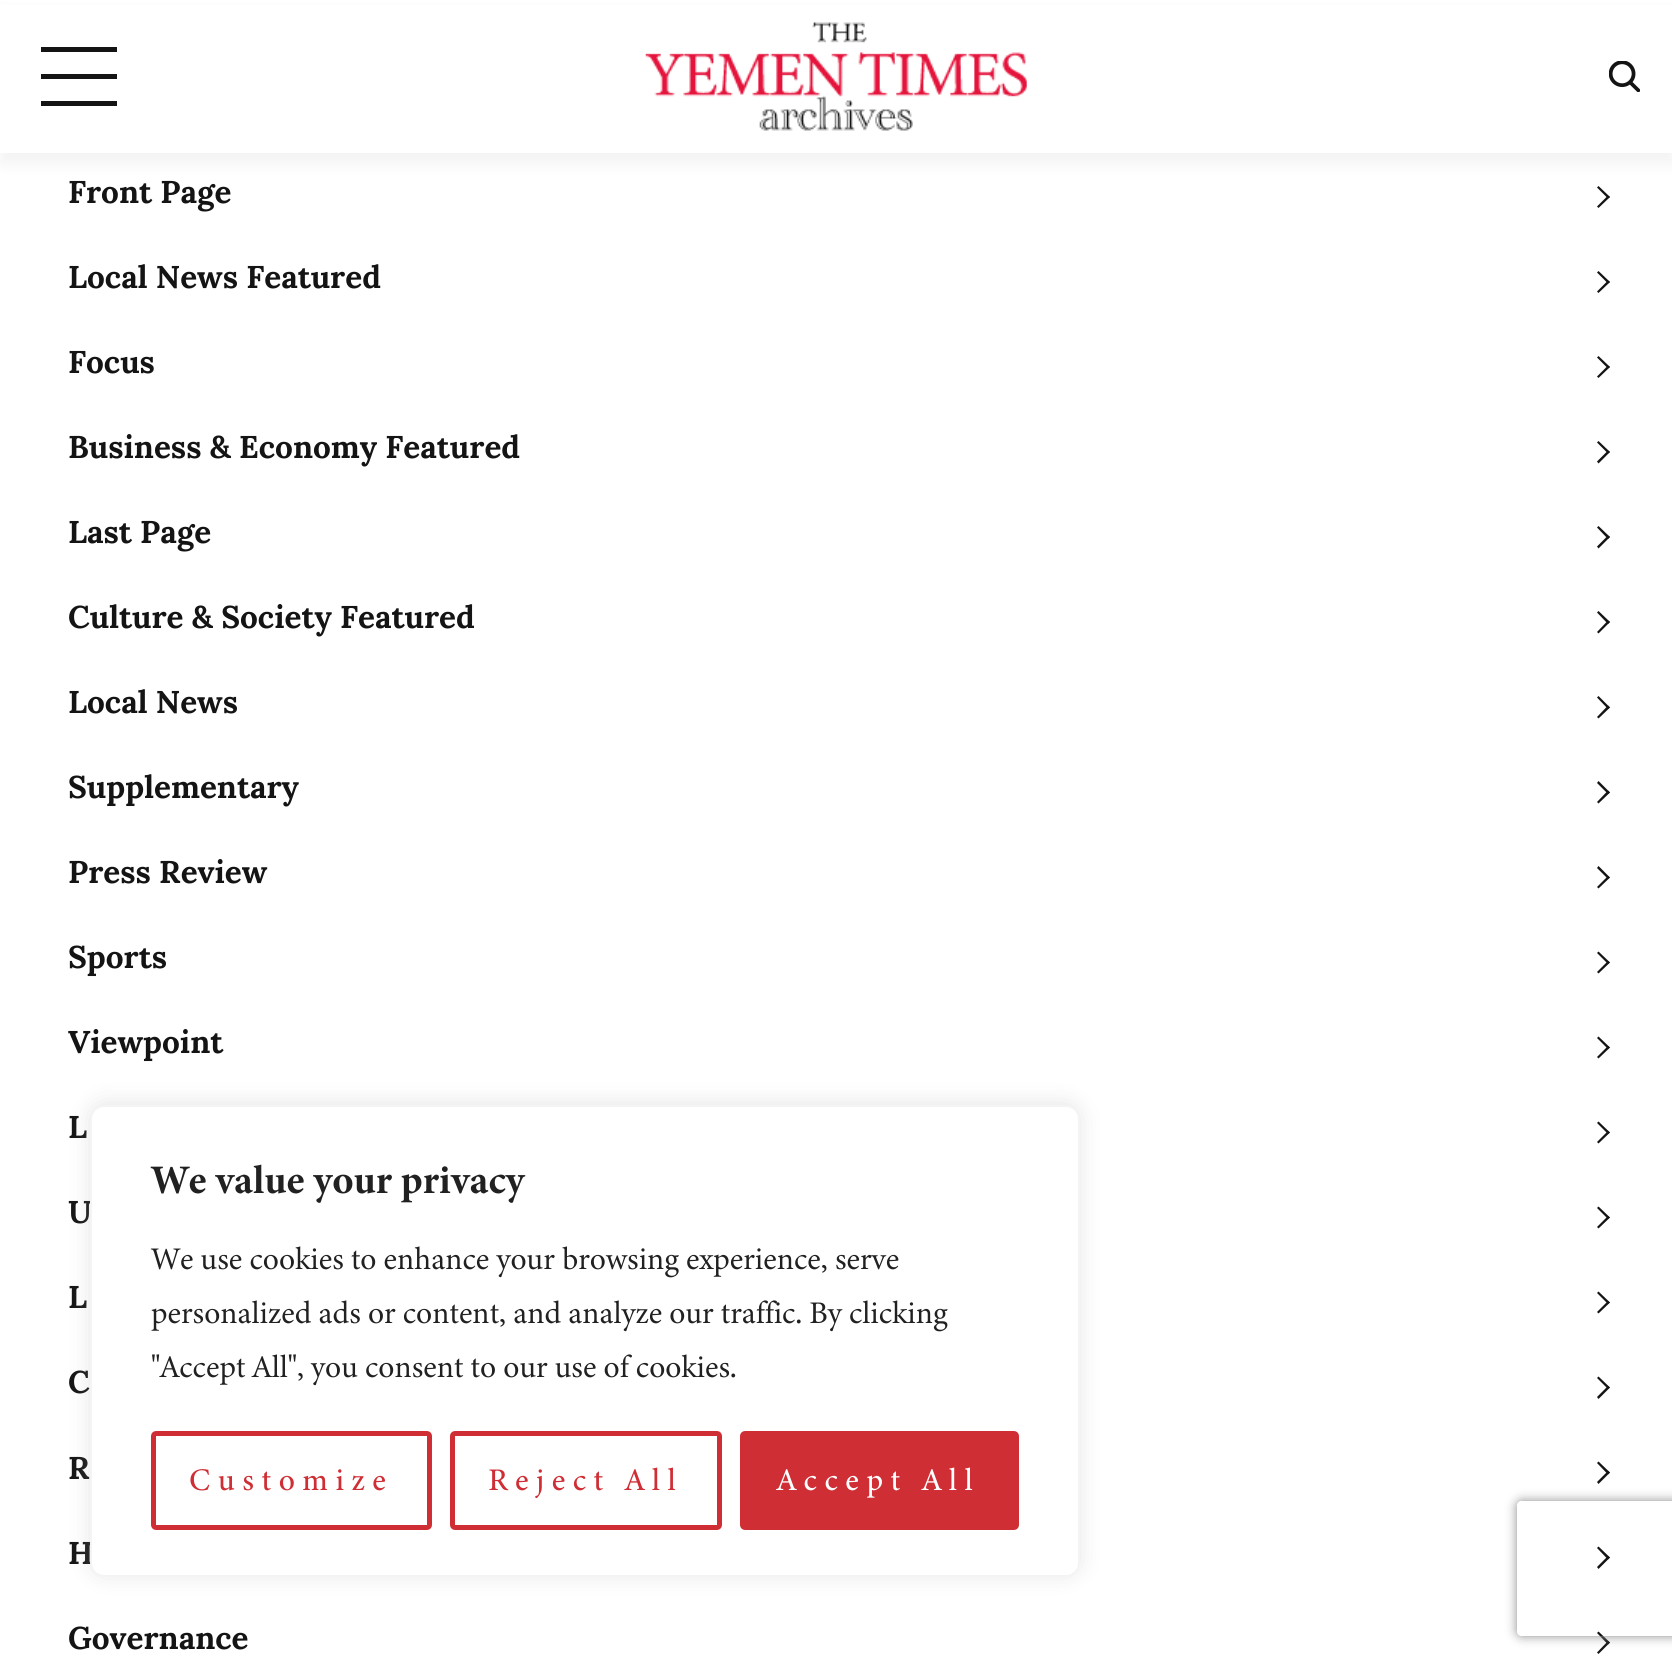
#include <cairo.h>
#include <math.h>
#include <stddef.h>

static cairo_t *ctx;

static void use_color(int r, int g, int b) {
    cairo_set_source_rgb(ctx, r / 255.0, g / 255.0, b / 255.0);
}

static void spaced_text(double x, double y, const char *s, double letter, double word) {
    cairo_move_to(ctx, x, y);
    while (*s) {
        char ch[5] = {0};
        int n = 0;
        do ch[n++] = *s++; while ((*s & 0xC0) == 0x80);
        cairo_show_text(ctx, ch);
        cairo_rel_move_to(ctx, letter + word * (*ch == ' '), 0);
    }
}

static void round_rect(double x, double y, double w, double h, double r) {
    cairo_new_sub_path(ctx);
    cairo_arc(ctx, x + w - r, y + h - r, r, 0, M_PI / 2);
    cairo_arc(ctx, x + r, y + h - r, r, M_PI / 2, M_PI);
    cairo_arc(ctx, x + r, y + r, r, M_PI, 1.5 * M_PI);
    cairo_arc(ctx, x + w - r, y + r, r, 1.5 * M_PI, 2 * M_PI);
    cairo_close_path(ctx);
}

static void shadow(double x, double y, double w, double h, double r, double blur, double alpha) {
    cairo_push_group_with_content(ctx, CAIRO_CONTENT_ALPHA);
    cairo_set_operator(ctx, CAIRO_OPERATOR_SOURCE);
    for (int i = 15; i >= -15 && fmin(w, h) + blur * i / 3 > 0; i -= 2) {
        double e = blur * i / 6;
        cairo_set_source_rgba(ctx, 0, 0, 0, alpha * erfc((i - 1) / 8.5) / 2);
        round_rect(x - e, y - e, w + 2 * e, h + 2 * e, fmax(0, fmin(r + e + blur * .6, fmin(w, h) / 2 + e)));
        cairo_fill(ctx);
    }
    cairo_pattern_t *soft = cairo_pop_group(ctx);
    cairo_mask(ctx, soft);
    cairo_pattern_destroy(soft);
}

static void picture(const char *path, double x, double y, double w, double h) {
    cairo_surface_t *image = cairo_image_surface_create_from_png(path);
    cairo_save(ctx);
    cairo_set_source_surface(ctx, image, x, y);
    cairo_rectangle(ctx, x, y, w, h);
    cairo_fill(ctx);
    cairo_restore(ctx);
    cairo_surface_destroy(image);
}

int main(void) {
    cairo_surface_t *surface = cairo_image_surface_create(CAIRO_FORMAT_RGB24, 1672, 1666);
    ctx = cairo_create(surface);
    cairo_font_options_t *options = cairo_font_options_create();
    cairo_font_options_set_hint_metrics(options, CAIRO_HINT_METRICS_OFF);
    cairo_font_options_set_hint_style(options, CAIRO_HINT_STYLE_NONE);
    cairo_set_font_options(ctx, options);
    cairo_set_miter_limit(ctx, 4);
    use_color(255, 255, 255);
    cairo_paint(ctx);
    use_color(103, 103, 103);
    shadow(0, 11, 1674, 153, 0, 7, 0.08);
    use_color(255, 255, 255);
    cairo_rectangle(ctx, 0, 5, 1672, 148);
    cairo_fill(ctx);
    use_color(20, 20, 20);
    cairo_rectangle(ctx, 41, 47, 76, 5);
    cairo_fill(ctx);
    cairo_rectangle(ctx, 41, 74, 76, 5);
    cairo_fill(ctx);
    cairo_rectangle(ctx, 41, 101, 76, 5);
    cairo_fill(ctx);
    picture("img1.png", 645, 22, 383, 109);
    picture("img2.png", 1609, 61, 31, 31);
    cairo_select_font_face(ctx, "Lora", CAIRO_FONT_SLANT_NORMAL, CAIRO_FONT_WEIGHT_BOLD);
    cairo_set_font_size(ctx, 31.5);
    cairo_move_to(ctx, 68, 203);
    cairo_show_text(ctx, "Front Page");
    cairo_new_path(ctx);
    cairo_move_to(ctx, 1598.5, 186);
    cairo_line_to(ctx, 1610, 197);
    cairo_line_to(ctx, 1608, 198.5);
    cairo_line_to(ctx, 1597, 187.5);
    cairo_close_path(ctx);
    cairo_fill(ctx);
    cairo_new_path(ctx);
    cairo_move_to(ctx, 1608, 195.5);
    cairo_line_to(ctx, 1610, 197);
    cairo_line_to(ctx, 1598.5, 208);
    cairo_line_to(ctx, 1597, 206.5);
    cairo_close_path(ctx);
    cairo_fill(ctx);
    cairo_move_to(ctx, 68, 288);
    cairo_show_text(ctx, "Local News Featured");
    cairo_new_path(ctx);
    cairo_move_to(ctx, 1598.5, 271);
    cairo_line_to(ctx, 1610, 282);
    cairo_line_to(ctx, 1608, 283.5);
    cairo_line_to(ctx, 1597, 272.5);
    cairo_close_path(ctx);
    cairo_fill(ctx);
    cairo_new_path(ctx);
    cairo_move_to(ctx, 1608, 280.5);
    cairo_line_to(ctx, 1610, 282);
    cairo_line_to(ctx, 1598.5, 293);
    cairo_line_to(ctx, 1597, 291.5);
    cairo_close_path(ctx);
    cairo_fill(ctx);
    cairo_move_to(ctx, 68, 373);
    cairo_show_text(ctx, "Focus");
    cairo_new_path(ctx);
    cairo_move_to(ctx, 1598.5, 356);
    cairo_line_to(ctx, 1610, 367);
    cairo_line_to(ctx, 1608, 368.5);
    cairo_line_to(ctx, 1597, 357.5);
    cairo_close_path(ctx);
    cairo_fill(ctx);
    cairo_new_path(ctx);
    cairo_move_to(ctx, 1608, 365.5);
    cairo_line_to(ctx, 1610, 367);
    cairo_line_to(ctx, 1598.5, 378);
    cairo_line_to(ctx, 1597, 376.5);
    cairo_close_path(ctx);
    cairo_fill(ctx);
    cairo_move_to(ctx, 68, 458);
    cairo_show_text(ctx, "Business & Economy Featured");
    cairo_new_path(ctx);
    cairo_move_to(ctx, 1598.5, 441);
    cairo_line_to(ctx, 1610, 452);
    cairo_line_to(ctx, 1608, 453.5);
    cairo_line_to(ctx, 1597, 442.5);
    cairo_close_path(ctx);
    cairo_fill(ctx);
    cairo_new_path(ctx);
    cairo_move_to(ctx, 1608, 450.5);
    cairo_line_to(ctx, 1610, 452);
    cairo_line_to(ctx, 1598.5, 463.5);
    cairo_line_to(ctx, 1597, 461.5);
    cairo_close_path(ctx);
    cairo_fill(ctx);
    cairo_move_to(ctx, 68, 543);
    cairo_show_text(ctx, "Last Page");
    cairo_new_path(ctx);
    cairo_move_to(ctx, 1598.5, 526);
    cairo_line_to(ctx, 1610, 537);
    cairo_line_to(ctx, 1608, 539);
    cairo_line_to(ctx, 1597, 527.5);
    cairo_close_path(ctx);
    cairo_fill(ctx);
    cairo_new_path(ctx);
    cairo_move_to(ctx, 1608, 535.5);
    cairo_line_to(ctx, 1610, 537);
    cairo_line_to(ctx, 1598.5, 548.5);
    cairo_line_to(ctx, 1597, 546.5);
    cairo_close_path(ctx);
    cairo_fill(ctx);
    cairo_move_to(ctx, 68, 628);
    cairo_show_text(ctx, "Culture & Society Featured");
    cairo_new_path(ctx);
    cairo_move_to(ctx, 1598.5, 611);
    cairo_line_to(ctx, 1610, 622);
    cairo_line_to(ctx, 1608, 624);
    cairo_line_to(ctx, 1597, 612.5);
    cairo_close_path(ctx);
    cairo_fill(ctx);
    cairo_new_path(ctx);
    cairo_move_to(ctx, 1608, 620.5);
    cairo_line_to(ctx, 1610, 622);
    cairo_line_to(ctx, 1598.5, 633.5);
    cairo_line_to(ctx, 1597, 632);
    cairo_close_path(ctx);
    cairo_fill(ctx);
    cairo_move_to(ctx, 68, 713);
    cairo_show_text(ctx, "Local News");
    cairo_new_path(ctx);
    cairo_move_to(ctx, 1598.5, 696);
    cairo_line_to(ctx, 1610, 707.5);
    cairo_line_to(ctx, 1608, 709);
    cairo_line_to(ctx, 1597, 697.5);
    cairo_close_path(ctx);
    cairo_fill(ctx);
    cairo_new_path(ctx);
    cairo_move_to(ctx, 1608, 705.5);
    cairo_line_to(ctx, 1610, 707.5);
    cairo_line_to(ctx, 1598.5, 718.5);
    cairo_line_to(ctx, 1597, 717);
    cairo_close_path(ctx);
    cairo_fill(ctx);
    cairo_move_to(ctx, 68, 798);
    cairo_show_text(ctx, "Supplementary");
    cairo_new_path(ctx);
    cairo_move_to(ctx, 1598.5, 781);
    cairo_line_to(ctx, 1610, 792.5);
    cairo_line_to(ctx, 1608, 794);
    cairo_line_to(ctx, 1597, 783);
    cairo_close_path(ctx);
    cairo_fill(ctx);
    cairo_new_path(ctx);
    cairo_move_to(ctx, 1608, 790.5);
    cairo_line_to(ctx, 1610, 792.5);
    cairo_line_to(ctx, 1598.5, 803.5);
    cairo_line_to(ctx, 1597, 802);
    cairo_close_path(ctx);
    cairo_fill(ctx);
    cairo_move_to(ctx, 68, 883);
    cairo_show_text(ctx, "Press Review");
    cairo_new_path(ctx);
    cairo_move_to(ctx, 1598.5, 866);
    cairo_line_to(ctx, 1610, 877.5);
    cairo_line_to(ctx, 1608, 879);
    cairo_line_to(ctx, 1597, 868);
    cairo_close_path(ctx);
    cairo_fill(ctx);
    cairo_new_path(ctx);
    cairo_move_to(ctx, 1608, 876);
    cairo_line_to(ctx, 1610, 877.5);
    cairo_line_to(ctx, 1598.5, 888.5);
    cairo_line_to(ctx, 1597, 887);
    cairo_close_path(ctx);
    cairo_fill(ctx);
    cairo_move_to(ctx, 68, 968);
    cairo_show_text(ctx, "Sports");
    cairo_new_path(ctx);
    cairo_move_to(ctx, 1598.5, 951.5);
    cairo_line_to(ctx, 1610, 962.5);
    cairo_line_to(ctx, 1608, 964);
    cairo_line_to(ctx, 1597, 953);
    cairo_close_path(ctx);
    cairo_fill(ctx);
    cairo_new_path(ctx);
    cairo_move_to(ctx, 1608, 961);
    cairo_line_to(ctx, 1610, 962.5);
    cairo_line_to(ctx, 1598.5, 973.5);
    cairo_line_to(ctx, 1597, 972);
    cairo_close_path(ctx);
    cairo_fill(ctx);
    cairo_move_to(ctx, 68, 1053);
    cairo_show_text(ctx, "Viewpoint");
    cairo_new_path(ctx);
    cairo_move_to(ctx, 1598.5, 1036.5);
    cairo_line_to(ctx, 1610, 1047.5);
    cairo_line_to(ctx, 1608, 1049);
    cairo_line_to(ctx, 1597, 1038);
    cairo_close_path(ctx);
    cairo_fill(ctx);
    cairo_new_path(ctx);
    cairo_move_to(ctx, 1608, 1046);
    cairo_line_to(ctx, 1610, 1047.5);
    cairo_line_to(ctx, 1598.5, 1058.5);
    cairo_line_to(ctx, 1597, 1057);
    cairo_close_path(ctx);
    cairo_fill(ctx);
    cairo_move_to(ctx, 68, 1138);
    cairo_show_text(ctx, "L");
    cairo_new_path(ctx);
    cairo_move_to(ctx, 1598.5, 1121.5);
    cairo_line_to(ctx, 1610, 1132.5);
    cairo_line_to(ctx, 1608, 1134);
    cairo_line_to(ctx, 1597, 1123);
    cairo_close_path(ctx);
    cairo_fill(ctx);
    cairo_new_path(ctx);
    cairo_move_to(ctx, 1608, 1131);
    cairo_line_to(ctx, 1610, 1132.5);
    cairo_line_to(ctx, 1598.5, 1143.5);
    cairo_line_to(ctx, 1597, 1142);
    cairo_close_path(ctx);
    cairo_fill(ctx);
    cairo_move_to(ctx, 68, 1223);
    cairo_show_text(ctx, "U");
    cairo_new_path(ctx);
    cairo_move_to(ctx, 1598.5, 1206.5);
    cairo_line_to(ctx, 1610, 1217.5);
    cairo_line_to(ctx, 1608, 1219);
    cairo_line_to(ctx, 1597, 1208);
    cairo_close_path(ctx);
    cairo_fill(ctx);
    cairo_new_path(ctx);
    cairo_move_to(ctx, 1608, 1216);
    cairo_line_to(ctx, 1610, 1217.5);
    cairo_line_to(ctx, 1598.5, 1228.5);
    cairo_line_to(ctx, 1597, 1227);
    cairo_close_path(ctx);
    cairo_fill(ctx);
    cairo_move_to(ctx, 68, 1308);
    cairo_show_text(ctx, "L");
    cairo_new_path(ctx);
    cairo_move_to(ctx, 1598.5, 1291.5);
    cairo_line_to(ctx, 1610, 1302.5);
    cairo_line_to(ctx, 1608, 1304);
    cairo_line_to(ctx, 1597, 1293);
    cairo_close_path(ctx);
    cairo_fill(ctx);
    cairo_new_path(ctx);
    cairo_move_to(ctx, 1608, 1301);
    cairo_line_to(ctx, 1610, 1302.5);
    cairo_line_to(ctx, 1598.5, 1313.5);
    cairo_line_to(ctx, 1597, 1312);
    cairo_close_path(ctx);
    cairo_fill(ctx);
    cairo_move_to(ctx, 68, 1393);
    cairo_show_text(ctx, "C");
    cairo_new_path(ctx);
    cairo_move_to(ctx, 1598.5, 1376.5);
    cairo_line_to(ctx, 1610, 1387.5);
    cairo_line_to(ctx, 1608, 1389);
    cairo_line_to(ctx, 1597, 1378);
    cairo_close_path(ctx);
    cairo_fill(ctx);
    cairo_new_path(ctx);
    cairo_move_to(ctx, 1608, 1386);
    cairo_line_to(ctx, 1610, 1387.5);
    cairo_line_to(ctx, 1598.5, 1399);
    cairo_line_to(ctx, 1597, 1397);
    cairo_close_path(ctx);
    cairo_fill(ctx);
    cairo_move_to(ctx, 68, 1479);
    cairo_show_text(ctx, "R");
    cairo_new_path(ctx);
    cairo_move_to(ctx, 1598.5, 1461.5);
    cairo_line_to(ctx, 1610, 1472.5);
    cairo_line_to(ctx, 1608, 1474.5);
    cairo_line_to(ctx, 1597, 1463);
    cairo_close_path(ctx);
    cairo_fill(ctx);
    cairo_new_path(ctx);
    cairo_move_to(ctx, 1608, 1471);
    cairo_line_to(ctx, 1610, 1472.5);
    cairo_line_to(ctx, 1598.5, 1484);
    cairo_line_to(ctx, 1597, 1482);
    cairo_close_path(ctx);
    cairo_fill(ctx);
    cairo_move_to(ctx, 68, 1564);
    cairo_show_text(ctx, "H");
    cairo_new_path(ctx);
    cairo_move_to(ctx, 1598.5, 1546.5);
    cairo_line_to(ctx, 1610, 1557.5);
    cairo_line_to(ctx, 1608, 1559.5);
    cairo_line_to(ctx, 1597, 1548);
    cairo_close_path(ctx);
    cairo_fill(ctx);
    cairo_new_path(ctx);
    cairo_move_to(ctx, 1608, 1556);
    cairo_line_to(ctx, 1610, 1557.5);
    cairo_line_to(ctx, 1598.5, 1569);
    cairo_line_to(ctx, 1597, 1567);
    cairo_close_path(ctx);
    cairo_fill(ctx);
    cairo_move_to(ctx, 68, 1649);
    cairo_show_text(ctx, "Governance");
    cairo_new_path(ctx);
    cairo_move_to(ctx, 1598.5, 1631.5);
    cairo_line_to(ctx, 1610, 1642.5);
    cairo_line_to(ctx, 1608, 1644.5);
    cairo_line_to(ctx, 1597, 1633);
    cairo_close_path(ctx);
    cairo_fill(ctx);
    cairo_new_path(ctx);
    cairo_move_to(ctx, 1608, 1641);
    cairo_line_to(ctx, 1610, 1642.5);
    cairo_line_to(ctx, 1598.5, 1654);
    cairo_line_to(ctx, 1597, 1652.5);
    cairo_close_path(ctx);
    cairo_fill(ctx);
    use_color(172, 171, 171);
    shadow(90, 1103, 990, 472, 14, 11, 0.3);
    use_color(255, 255, 255);
    round_rect(91, 1106, 988, 470, 13);
    cairo_fill_preserve(ctx);
    use_color(244, 244, 244);
    cairo_stroke(ctx);
    cairo_select_font_face(ctx, "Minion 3", CAIRO_FONT_SLANT_NORMAL, CAIRO_FONT_WEIGHT_BOLD);
    cairo_set_font_size(ctx, 40.5);
    use_color(33, 33, 33);
    cairo_move_to(ctx, 151, 1193);
    cairo_show_text(ctx, "We value your privacy");
    cairo_select_font_face(ctx, "Minion 3", CAIRO_FONT_SLANT_NORMAL, CAIRO_FONT_WEIGHT_NORMAL);
    cairo_set_font_size(ctx, 31.5);
    cairo_move_to(ctx, 151, 1269);
    cairo_show_text(ctx, "We use cookies to enhance your browsing experience, serve");
    cairo_move_to(ctx, 151, 1323);
    cairo_show_text(ctx, "personalized ads or content, and analyze our traffic. By clicking");
    cairo_move_to(ctx, 151, 1377);
    cairo_show_text(ctx, "\"Accept All\", you consent to our use of cookies.");
    round_rect(153.5, 1433.5, 276, 94, 2.5);
    use_color(207, 46, 52);
    cairo_set_line_width(ctx, 5);
    cairo_stroke(ctx);
    cairo_select_font_face(ctx, "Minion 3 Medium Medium", CAIRO_FONT_SLANT_NORMAL, CAIRO_FONT_WEIGHT_NORMAL);
    spaced_text(189, 1490, "Customize", 7.5, 0);
    round_rect(452.5, 1433.5, 267, 94, 2.5);
    cairo_stroke(ctx);
    spaced_text(488, 1490, "Reject All", 7.5, 0);
    round_rect(742.5, 1433.5, 274, 94, 2.5);
    cairo_fill_preserve(ctx);
    cairo_stroke(ctx);
    use_color(255, 255, 255);
    spaced_text(777, 1490, "Accept All", 7.5, 0);
    cairo_save(ctx);
    cairo_set_fill_rule(ctx, CAIRO_FILL_RULE_EVEN_ODD);
    cairo_new_path(ctx);
    cairo_move_to(ctx, 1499, 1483);
    cairo_line_to(ctx, 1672, 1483);
    cairo_line_to(ctx, 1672, 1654);
    cairo_line_to(ctx, 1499, 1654);
    cairo_close_path(ctx);
    cairo_move_to(ctx, 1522, 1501);
    cairo_line_to(ctx, 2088, 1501);
    cairo_curve_to(ctx, 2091, 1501, 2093, 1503, 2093, 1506);
    cairo_line_to(ctx, 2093, 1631);
    cairo_curve_to(ctx, 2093, 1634, 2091, 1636, 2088, 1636);
    cairo_line_to(ctx, 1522, 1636);
    cairo_curve_to(ctx, 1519, 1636, 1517, 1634, 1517, 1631);
    cairo_line_to(ctx, 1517, 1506);
    cairo_curve_to(ctx, 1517, 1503, 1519, 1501, 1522, 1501);
    cairo_close_path(ctx);
    cairo_clip(ctx);
    use_color(138, 138, 138);
    shadow(1517, 1501, 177, 135, 5, 5.5, 1);
    cairo_restore(ctx);
    cairo_surface_write_to_png(surface, "result.png");
    cairo_font_options_destroy(options);
    cairo_destroy(ctx);
    cairo_surface_destroy(surface);
    return 0;
}
